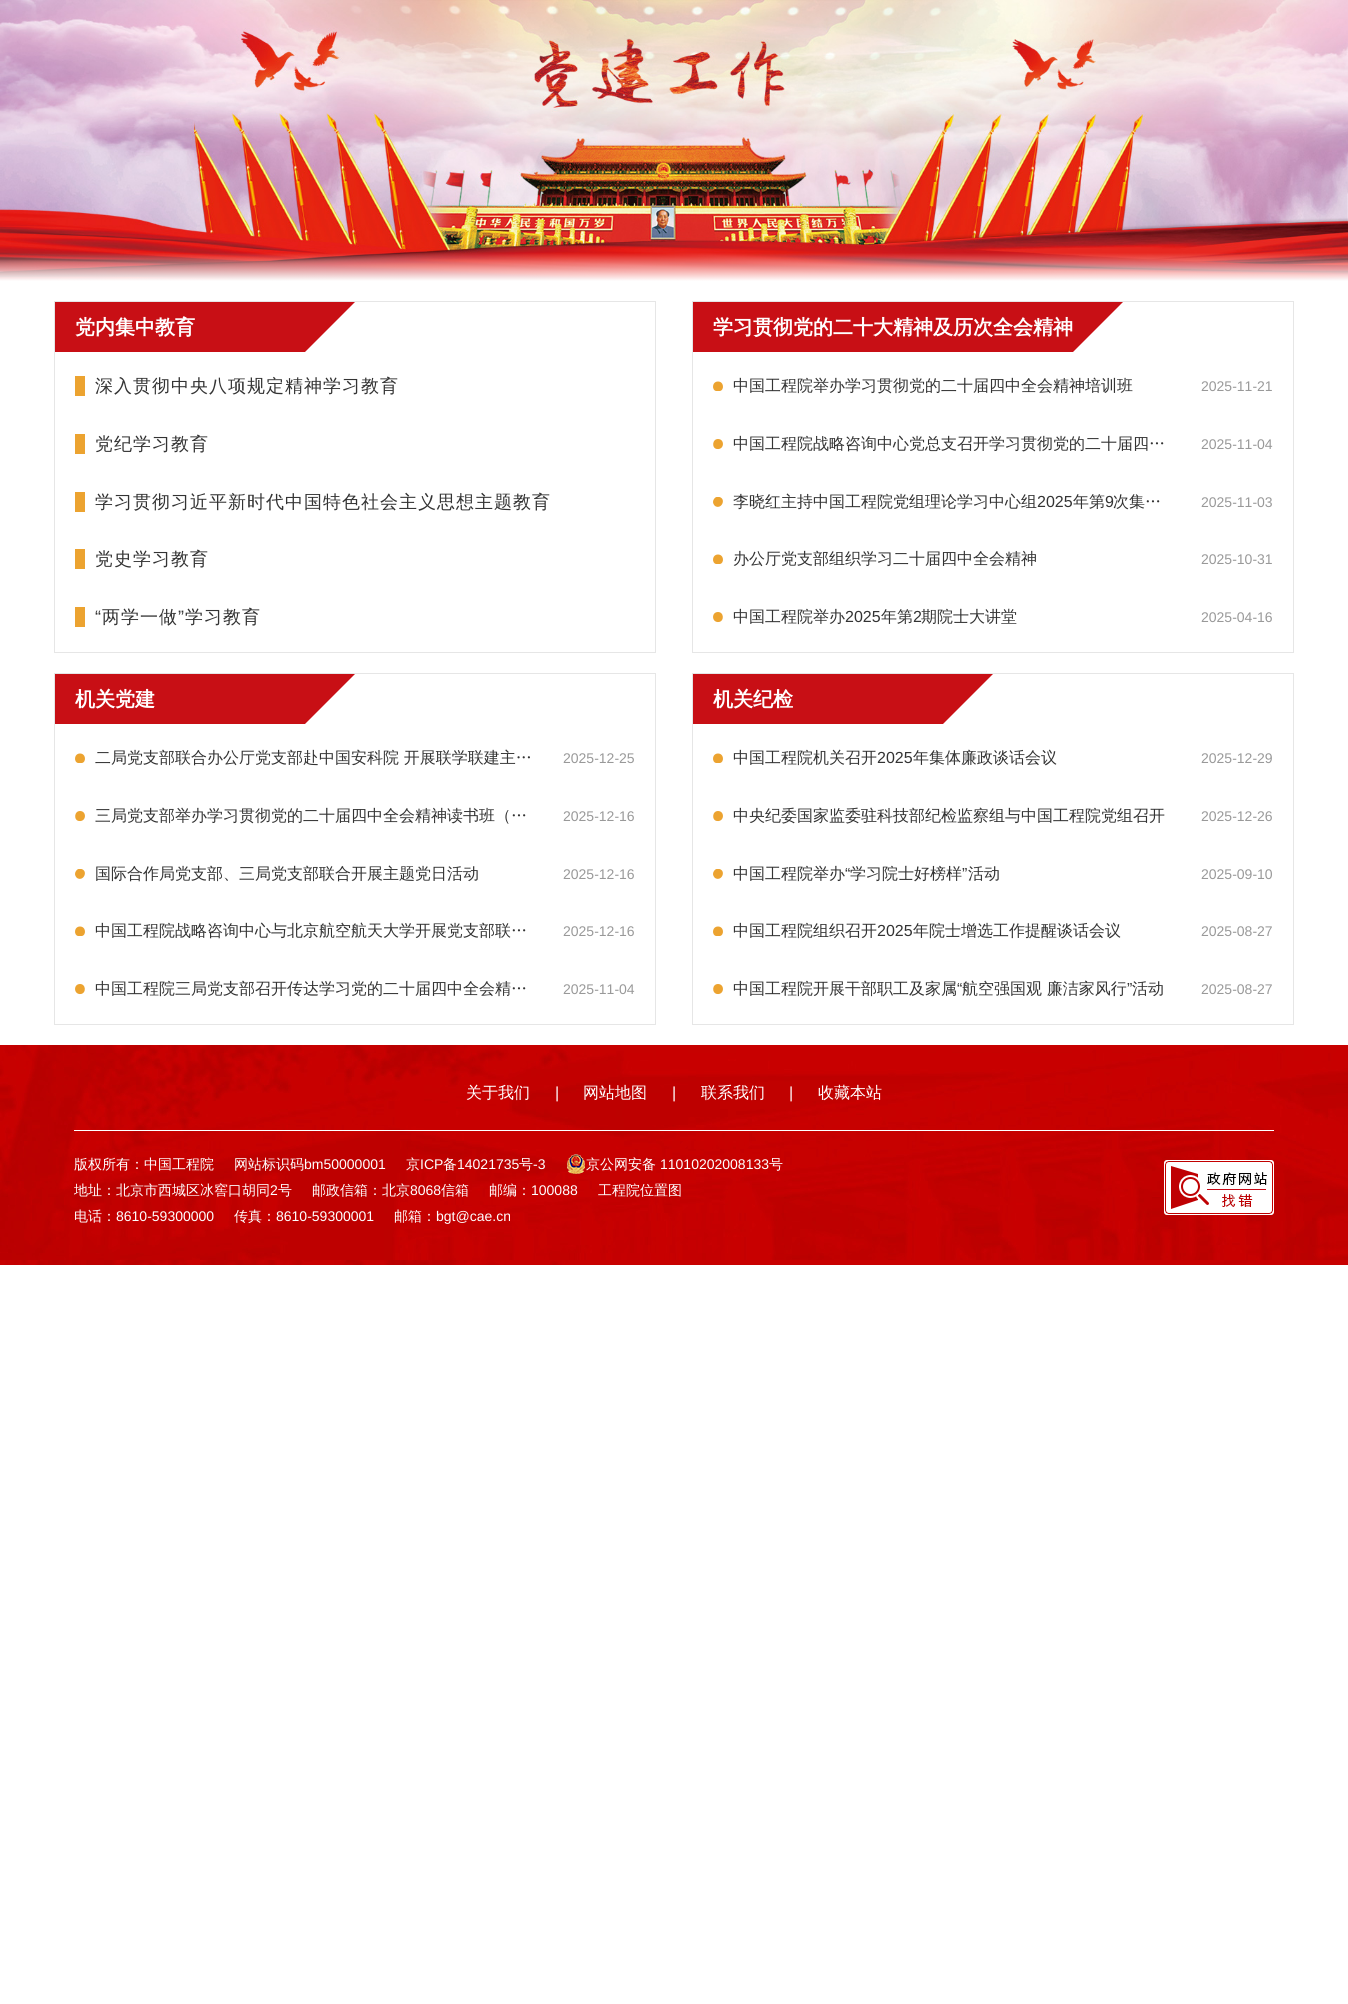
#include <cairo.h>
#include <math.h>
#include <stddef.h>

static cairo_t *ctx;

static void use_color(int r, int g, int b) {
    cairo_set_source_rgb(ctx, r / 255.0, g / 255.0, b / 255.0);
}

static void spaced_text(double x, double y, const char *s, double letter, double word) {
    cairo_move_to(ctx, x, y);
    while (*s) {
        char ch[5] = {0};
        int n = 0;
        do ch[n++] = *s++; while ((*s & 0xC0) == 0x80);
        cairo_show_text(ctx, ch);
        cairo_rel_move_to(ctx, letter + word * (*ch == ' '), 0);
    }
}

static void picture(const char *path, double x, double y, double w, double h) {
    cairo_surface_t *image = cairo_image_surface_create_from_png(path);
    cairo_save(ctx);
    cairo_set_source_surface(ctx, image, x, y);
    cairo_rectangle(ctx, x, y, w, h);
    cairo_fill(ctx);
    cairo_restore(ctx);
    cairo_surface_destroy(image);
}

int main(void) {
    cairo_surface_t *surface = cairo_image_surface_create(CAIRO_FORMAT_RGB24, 1348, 2004);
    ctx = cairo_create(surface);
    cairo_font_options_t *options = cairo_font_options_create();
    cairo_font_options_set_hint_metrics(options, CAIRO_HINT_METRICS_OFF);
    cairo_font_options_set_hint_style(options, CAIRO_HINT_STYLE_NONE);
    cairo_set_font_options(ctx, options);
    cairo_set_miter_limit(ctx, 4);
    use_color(255, 255, 255);
    cairo_paint(ctx);
    picture("img1.png", 0, 0, 1348, 281);
    cairo_rectangle(ctx, 54.5, 301.5, 601, 351);
    use_color(230, 230, 230);
    cairo_set_line_width(ctx, 1);
    cairo_stroke(ctx);
    use_color(200, 15, 21);
    cairo_rectangle(ctx, 55, 302, 250, 50);
    cairo_fill(ctx);
    cairo_select_font_face(ctx, "WenQuanYi Zen Hei", CAIRO_FONT_SLANT_NORMAL, CAIRO_FONT_WEIGHT_BOLD);
    cairo_set_font_size(ctx, 20);
    use_color(255, 255, 255);
    cairo_move_to(ctx, 75, 334);
    cairo_show_text(ctx, "党内集中教育");
    use_color(200, 15, 21);
    cairo_new_path(ctx);
    cairo_move_to(ctx, 305, 302);
    cairo_line_to(ctx, 355, 302);
    cairo_line_to(ctx, 305, 352);
    cairo_close_path(ctx);
    cairo_fill(ctx);
    use_color(236, 163, 48);
    cairo_rectangle(ctx, 75, 376, 10, 20);
    cairo_fill(ctx);
    cairo_select_font_face(ctx, "WenQuanYi Zen Hei Medium", CAIRO_FONT_SLANT_NORMAL, CAIRO_FONT_WEIGHT_NORMAL);
    cairo_set_font_size(ctx, 18);
    use_color(51, 51, 51);
    spaced_text(95, 392, "深入贯彻中央八项规定精神学习教育", 1, 0);
    use_color(236, 163, 48);
    cairo_rectangle(ctx, 75, 434, 10, 20);
    cairo_fill(ctx);
    use_color(51, 51, 51);
    spaced_text(95, 450, "党纪学习教育", 1, 0);
    use_color(236, 163, 48);
    cairo_rectangle(ctx, 75, 492, 10, 20);
    cairo_fill(ctx);
    use_color(51, 51, 51);
    spaced_text(95, 508, "学习贯彻习近平新时代中国特色社会主义思想主题教育", 1, 0);
    use_color(236, 163, 48);
    cairo_rectangle(ctx, 75, 549, 10, 20);
    cairo_fill(ctx);
    use_color(51, 51, 51);
    spaced_text(95, 565, "党史学习教育", 1, 0);
    use_color(236, 163, 48);
    cairo_rectangle(ctx, 75, 607, 10, 20);
    cairo_fill(ctx);
    cairo_select_font_face(ctx, "Liberation Sans", CAIRO_FONT_SLANT_NORMAL, CAIRO_FONT_WEIGHT_NORMAL);
    use_color(51, 51, 51);
    spaced_text(95, 623, "“", 1, 0);
    cairo_select_font_face(ctx, "WenQuanYi Zen Hei Medium", CAIRO_FONT_SLANT_NORMAL, CAIRO_FONT_WEIGHT_NORMAL);
    spaced_text(102, 623, "两学一做", 1, 0);
    cairo_select_font_face(ctx, "Liberation Sans", CAIRO_FONT_SLANT_NORMAL, CAIRO_FONT_WEIGHT_NORMAL);
    spaced_text(178, 623, "”", 1, 0);
    cairo_select_font_face(ctx, "WenQuanYi Zen Hei Medium", CAIRO_FONT_SLANT_NORMAL, CAIRO_FONT_WEIGHT_NORMAL);
    spaced_text(185, 623, "学习教育", 1, 0);
    cairo_rectangle(ctx, 692.5, 301.5, 601, 351);
    use_color(230, 230, 230);
    cairo_stroke(ctx);
    use_color(200, 15, 21);
    cairo_rectangle(ctx, 693, 302, 380, 50);
    cairo_fill(ctx);
    cairo_select_font_face(ctx, "WenQuanYi Zen Hei", CAIRO_FONT_SLANT_NORMAL, CAIRO_FONT_WEIGHT_BOLD);
    cairo_set_font_size(ctx, 20);
    use_color(255, 255, 255);
    cairo_move_to(ctx, 713, 334);
    cairo_show_text(ctx, "学习贯彻党的二十大精神及历次全会精神");
    use_color(200, 15, 21);
    cairo_new_path(ctx);
    cairo_move_to(ctx, 1073, 302);
    cairo_line_to(ctx, 1123, 302);
    cairo_line_to(ctx, 1073, 352);
    cairo_close_path(ctx);
    cairo_fill(ctx);
    use_color(236, 163, 48);
    cairo_new_path(ctx);
    cairo_move_to(ctx, 718, 381.5);
    cairo_curve_to(ctx, 724, 381.5, 724.5, 390, 720, 391);
    cairo_line_to(ctx, 716, 391);
    cairo_curve_to(ctx, 711.5, 390, 712, 381.5, 718, 381.5);
    cairo_close_path(ctx);
    cairo_fill(ctx);
    cairo_select_font_face(ctx, "WenQuanYi Zen Hei Medium", CAIRO_FONT_SLANT_NORMAL, CAIRO_FONT_WEIGHT_NORMAL);
    cairo_set_font_size(ctx, 16);
    use_color(51, 51, 51);
    cairo_move_to(ctx, 733, 391);
    cairo_show_text(ctx, "中国工程院举办学习贯彻党的二十届四中全会精神培训班");
    cairo_select_font_face(ctx, "Liberation Sans", CAIRO_FONT_SLANT_NORMAL, CAIRO_FONT_WEIGHT_NORMAL);
    cairo_set_font_size(ctx, 14);
    use_color(153, 153, 153);
    cairo_move_to(ctx, 1201, 391);
    cairo_show_text(ctx, "2025-11-21");
    use_color(236, 163, 48);
    cairo_new_path(ctx);
    cairo_move_to(ctx, 718, 439);
    cairo_curve_to(ctx, 725, 439, 724.5, 450, 717, 449);
    cairo_curve_to(ctx, 711.5, 448.5, 712, 439, 718, 439);
    cairo_close_path(ctx);
    cairo_fill(ctx);
    cairo_select_font_face(ctx, "WenQuanYi Zen Hei Medium", CAIRO_FONT_SLANT_NORMAL, CAIRO_FONT_WEIGHT_NORMAL);
    cairo_set_font_size(ctx, 16);
    use_color(51, 51, 51);
    cairo_move_to(ctx, 733, 449);
    cairo_show_text(ctx, "中国工程院战略咨询中心党总支召开学习贯彻党的二十届四…");
    cairo_select_font_face(ctx, "Liberation Sans", CAIRO_FONT_SLANT_NORMAL, CAIRO_FONT_WEIGHT_NORMAL);
    cairo_set_font_size(ctx, 14);
    use_color(153, 153, 153);
    cairo_move_to(ctx, 1201, 449);
    cairo_show_text(ctx, "2025-11-04");
    use_color(236, 163, 48);
    cairo_new_path(ctx);
    cairo_move_to(ctx, 719.5, 497);
    cairo_curve_to(ctx, 726.5, 499, 721.5, 510, 715, 506);
    cairo_curve_to(ctx, 714, 505, 713, 503.5, 713, 502);
    cairo_curve_to(ctx, 713, 500, 714.5, 497.5, 716.5, 497);
    cairo_close_path(ctx);
    cairo_fill(ctx);
    cairo_select_font_face(ctx, "WenQuanYi Zen Hei Medium", CAIRO_FONT_SLANT_NORMAL, CAIRO_FONT_WEIGHT_NORMAL);
    cairo_set_font_size(ctx, 16);
    use_color(51, 51, 51);
    cairo_move_to(ctx, 733, 507);
    cairo_show_text(ctx, "李晓红主持中国工程院党组理论学习中心组");
    cairo_select_font_face(ctx, "Liberation Sans", CAIRO_FONT_SLANT_NORMAL, CAIRO_FONT_WEIGHT_NORMAL);
    cairo_move_to(ctx, 1037, 507);
    cairo_show_text(ctx, "2025");
    cairo_select_font_face(ctx, "WenQuanYi Zen Hei Medium", CAIRO_FONT_SLANT_NORMAL, CAIRO_FONT_WEIGHT_NORMAL);
    cairo_move_to(ctx, 1073, 507);
    cairo_show_text(ctx, "年第");
    cairo_select_font_face(ctx, "Liberation Sans", CAIRO_FONT_SLANT_NORMAL, CAIRO_FONT_WEIGHT_NORMAL);
    cairo_move_to(ctx, 1105, 507);
    cairo_show_text(ctx, "9");
    cairo_select_font_face(ctx, "WenQuanYi Zen Hei Medium", CAIRO_FONT_SLANT_NORMAL, CAIRO_FONT_WEIGHT_NORMAL);
    cairo_move_to(ctx, 1113, 507);
    cairo_show_text(ctx, "次集…");
    cairo_select_font_face(ctx, "Liberation Sans", CAIRO_FONT_SLANT_NORMAL, CAIRO_FONT_WEIGHT_NORMAL);
    cairo_set_font_size(ctx, 14);
    use_color(153, 153, 153);
    cairo_move_to(ctx, 1201, 507);
    cairo_show_text(ctx, "2025-11-03");
    use_color(236, 163, 48);
    cairo_new_path(ctx);
    cairo_move_to(ctx, 718, 554.5);
    cairo_curve_to(ctx, 724, 554.5, 724.5, 563, 720, 564);
    cairo_line_to(ctx, 716, 564);
    cairo_curve_to(ctx, 711.5, 563, 712, 554.5, 718, 554.5);
    cairo_close_path(ctx);
    cairo_fill(ctx);
    cairo_select_font_face(ctx, "WenQuanYi Zen Hei Medium", CAIRO_FONT_SLANT_NORMAL, CAIRO_FONT_WEIGHT_NORMAL);
    cairo_set_font_size(ctx, 16);
    use_color(51, 51, 51);
    cairo_move_to(ctx, 733, 564);
    cairo_show_text(ctx, "办公厅党支部组织学习二十届四中全会精神");
    cairo_select_font_face(ctx, "Liberation Sans", CAIRO_FONT_SLANT_NORMAL, CAIRO_FONT_WEIGHT_NORMAL);
    cairo_set_font_size(ctx, 14);
    use_color(153, 153, 153);
    cairo_move_to(ctx, 1201, 564);
    cairo_show_text(ctx, "2025-10-31");
    use_color(236, 163, 48);
    cairo_new_path(ctx);
    cairo_move_to(ctx, 718, 612);
    cairo_curve_to(ctx, 724, 612, 724.5, 621, 719, 622);
    cairo_curve_to(ctx, 711.5, 623, 711, 612, 718, 612);
    cairo_close_path(ctx);
    cairo_fill(ctx);
    cairo_select_font_face(ctx, "WenQuanYi Zen Hei Medium", CAIRO_FONT_SLANT_NORMAL, CAIRO_FONT_WEIGHT_NORMAL);
    cairo_set_font_size(ctx, 16);
    use_color(51, 51, 51);
    cairo_move_to(ctx, 733, 622);
    cairo_show_text(ctx, "中国工程院举办");
    cairo_select_font_face(ctx, "Liberation Sans", CAIRO_FONT_SLANT_NORMAL, CAIRO_FONT_WEIGHT_NORMAL);
    cairo_move_to(ctx, 845, 622);
    cairo_show_text(ctx, "2025");
    cairo_select_font_face(ctx, "WenQuanYi Zen Hei Medium", CAIRO_FONT_SLANT_NORMAL, CAIRO_FONT_WEIGHT_NORMAL);
    cairo_move_to(ctx, 881, 622);
    cairo_show_text(ctx, "年第");
    cairo_select_font_face(ctx, "Liberation Sans", CAIRO_FONT_SLANT_NORMAL, CAIRO_FONT_WEIGHT_NORMAL);
    cairo_move_to(ctx, 913, 622);
    cairo_show_text(ctx, "2");
    cairo_select_font_face(ctx, "WenQuanYi Zen Hei Medium", CAIRO_FONT_SLANT_NORMAL, CAIRO_FONT_WEIGHT_NORMAL);
    cairo_move_to(ctx, 921, 622);
    cairo_show_text(ctx, "期院士大讲堂");
    cairo_select_font_face(ctx, "Liberation Sans", CAIRO_FONT_SLANT_NORMAL, CAIRO_FONT_WEIGHT_NORMAL);
    cairo_set_font_size(ctx, 14);
    use_color(153, 153, 153);
    cairo_move_to(ctx, 1201, 622);
    cairo_show_text(ctx, "2025-04-16");
    cairo_rectangle(ctx, 54.5, 673.5, 601, 351);
    use_color(230, 230, 230);
    cairo_stroke(ctx);
    use_color(200, 15, 21);
    cairo_rectangle(ctx, 55, 674, 250, 50);
    cairo_fill(ctx);
    cairo_select_font_face(ctx, "WenQuanYi Zen Hei", CAIRO_FONT_SLANT_NORMAL, CAIRO_FONT_WEIGHT_BOLD);
    cairo_set_font_size(ctx, 20);
    use_color(255, 255, 255);
    cairo_move_to(ctx, 75, 706);
    cairo_show_text(ctx, "机关党建");
    use_color(200, 15, 21);
    cairo_new_path(ctx);
    cairo_move_to(ctx, 305, 674);
    cairo_line_to(ctx, 355, 674);
    cairo_line_to(ctx, 305, 724);
    cairo_close_path(ctx);
    cairo_fill(ctx);
    use_color(236, 163, 48);
    cairo_new_path(ctx);
    cairo_move_to(ctx, 80, 753.5);
    cairo_curve_to(ctx, 86, 753.5, 86.5, 762, 82, 763);
    cairo_line_to(ctx, 78, 763);
    cairo_curve_to(ctx, 73.5, 762, 74, 753.5, 80, 753.5);
    cairo_close_path(ctx);
    cairo_fill(ctx);
    cairo_select_font_face(ctx, "WenQuanYi Zen Hei Medium", CAIRO_FONT_SLANT_NORMAL, CAIRO_FONT_WEIGHT_NORMAL);
    cairo_set_font_size(ctx, 16);
    use_color(51, 51, 51);
    cairo_move_to(ctx, 95, 763);
    cairo_show_text(ctx, "二局党支部联合办公厅党支部赴中国安科院 开展联学联建主…");
    cairo_select_font_face(ctx, "Liberation Sans", CAIRO_FONT_SLANT_NORMAL, CAIRO_FONT_WEIGHT_NORMAL);
    cairo_set_font_size(ctx, 14);
    use_color(153, 153, 153);
    cairo_move_to(ctx, 563, 763);
    cairo_show_text(ctx, "2025-12-25");
    use_color(236, 163, 48);
    cairo_new_path(ctx);
    cairo_move_to(ctx, 80, 811);
    cairo_curve_to(ctx, 87, 811, 86.5, 822, 79, 821);
    cairo_curve_to(ctx, 73.5, 820.5, 74, 811, 80, 811);
    cairo_close_path(ctx);
    cairo_fill(ctx);
    cairo_select_font_face(ctx, "WenQuanYi Zen Hei Medium", CAIRO_FONT_SLANT_NORMAL, CAIRO_FONT_WEIGHT_NORMAL);
    cairo_set_font_size(ctx, 16);
    use_color(51, 51, 51);
    cairo_move_to(ctx, 95, 821);
    cairo_show_text(ctx, "三局党支部举办学习贯彻党的二十届四中全会精神读书班（…");
    cairo_select_font_face(ctx, "Liberation Sans", CAIRO_FONT_SLANT_NORMAL, CAIRO_FONT_WEIGHT_NORMAL);
    cairo_set_font_size(ctx, 14);
    use_color(153, 153, 153);
    cairo_move_to(ctx, 563, 821);
    cairo_show_text(ctx, "2025-12-16");
    use_color(236, 163, 48);
    cairo_new_path(ctx);
    cairo_move_to(ctx, 81.5, 869);
    cairo_curve_to(ctx, 88.5, 871, 83.5, 882, 77, 878);
    cairo_curve_to(ctx, 76, 877, 75, 875.5, 75, 874);
    cairo_curve_to(ctx, 75, 872, 76.5, 869.5, 78.5, 869);
    cairo_close_path(ctx);
    cairo_fill(ctx);
    cairo_select_font_face(ctx, "WenQuanYi Zen Hei Medium", CAIRO_FONT_SLANT_NORMAL, CAIRO_FONT_WEIGHT_NORMAL);
    cairo_set_font_size(ctx, 16);
    use_color(51, 51, 51);
    cairo_move_to(ctx, 95, 879);
    cairo_show_text(ctx, "国际合作局党支部、三局党支部联合开展主题党日活动");
    cairo_select_font_face(ctx, "Liberation Sans", CAIRO_FONT_SLANT_NORMAL, CAIRO_FONT_WEIGHT_NORMAL);
    cairo_set_font_size(ctx, 14);
    use_color(153, 153, 153);
    cairo_move_to(ctx, 563, 879);
    cairo_show_text(ctx, "2025-12-16");
    use_color(236, 163, 48);
    cairo_new_path(ctx);
    cairo_move_to(ctx, 80, 926.5);
    cairo_curve_to(ctx, 86, 926.5, 86.5, 935, 82, 936);
    cairo_line_to(ctx, 78, 936);
    cairo_curve_to(ctx, 73.5, 935, 74, 926.5, 80, 926.5);
    cairo_close_path(ctx);
    cairo_fill(ctx);
    cairo_select_font_face(ctx, "WenQuanYi Zen Hei Medium", CAIRO_FONT_SLANT_NORMAL, CAIRO_FONT_WEIGHT_NORMAL);
    cairo_set_font_size(ctx, 16);
    use_color(51, 51, 51);
    cairo_move_to(ctx, 95, 936);
    cairo_show_text(ctx, "中国工程院战略咨询中心与北京航空航天大学开展党支部联…");
    cairo_select_font_face(ctx, "Liberation Sans", CAIRO_FONT_SLANT_NORMAL, CAIRO_FONT_WEIGHT_NORMAL);
    cairo_set_font_size(ctx, 14);
    use_color(153, 153, 153);
    cairo_move_to(ctx, 563, 936);
    cairo_show_text(ctx, "2025-12-16");
    use_color(236, 163, 48);
    cairo_new_path(ctx);
    cairo_move_to(ctx, 80, 984);
    cairo_curve_to(ctx, 86, 984, 86.5, 993, 81, 994);
    cairo_curve_to(ctx, 73.5, 995, 73, 984, 80, 984);
    cairo_close_path(ctx);
    cairo_fill(ctx);
    cairo_select_font_face(ctx, "WenQuanYi Zen Hei Medium", CAIRO_FONT_SLANT_NORMAL, CAIRO_FONT_WEIGHT_NORMAL);
    cairo_set_font_size(ctx, 16);
    use_color(51, 51, 51);
    cairo_move_to(ctx, 95, 994);
    cairo_show_text(ctx, "中国工程院三局党支部召开传达学习党的二十届四中全会精…");
    cairo_select_font_face(ctx, "Liberation Sans", CAIRO_FONT_SLANT_NORMAL, CAIRO_FONT_WEIGHT_NORMAL);
    cairo_set_font_size(ctx, 14);
    use_color(153, 153, 153);
    cairo_move_to(ctx, 563, 994);
    cairo_show_text(ctx, "2025-11-04");
    cairo_rectangle(ctx, 692.5, 673.5, 601, 351);
    use_color(230, 230, 230);
    cairo_stroke(ctx);
    use_color(200, 15, 21);
    cairo_rectangle(ctx, 693, 674, 250, 50);
    cairo_fill(ctx);
    cairo_select_font_face(ctx, "WenQuanYi Zen Hei", CAIRO_FONT_SLANT_NORMAL, CAIRO_FONT_WEIGHT_BOLD);
    cairo_set_font_size(ctx, 20);
    use_color(255, 255, 255);
    cairo_move_to(ctx, 713, 706);
    cairo_show_text(ctx, "机关纪检");
    use_color(200, 15, 21);
    cairo_new_path(ctx);
    cairo_move_to(ctx, 943, 674);
    cairo_line_to(ctx, 993, 674);
    cairo_line_to(ctx, 943, 724);
    cairo_close_path(ctx);
    cairo_fill(ctx);
    use_color(236, 163, 48);
    cairo_new_path(ctx);
    cairo_move_to(ctx, 718, 753.5);
    cairo_curve_to(ctx, 724, 753.5, 724.5, 762, 720, 763);
    cairo_line_to(ctx, 716, 763);
    cairo_curve_to(ctx, 711.5, 762, 712, 753.5, 718, 753.5);
    cairo_close_path(ctx);
    cairo_fill(ctx);
    cairo_select_font_face(ctx, "WenQuanYi Zen Hei Medium", CAIRO_FONT_SLANT_NORMAL, CAIRO_FONT_WEIGHT_NORMAL);
    cairo_set_font_size(ctx, 16);
    use_color(51, 51, 51);
    cairo_move_to(ctx, 733, 763);
    cairo_show_text(ctx, "中国工程院机关召开");
    cairo_select_font_face(ctx, "Liberation Sans", CAIRO_FONT_SLANT_NORMAL, CAIRO_FONT_WEIGHT_NORMAL);
    cairo_move_to(ctx, 877, 763);
    cairo_show_text(ctx, "2025");
    cairo_select_font_face(ctx, "WenQuanYi Zen Hei Medium", CAIRO_FONT_SLANT_NORMAL, CAIRO_FONT_WEIGHT_NORMAL);
    cairo_move_to(ctx, 913, 763);
    cairo_show_text(ctx, "年集体廉政谈话会议");
    cairo_select_font_face(ctx, "Liberation Sans", CAIRO_FONT_SLANT_NORMAL, CAIRO_FONT_WEIGHT_NORMAL);
    cairo_set_font_size(ctx, 14);
    use_color(153, 153, 153);
    cairo_move_to(ctx, 1201, 763);
    cairo_show_text(ctx, "2025-12-29");
    use_color(236, 163, 48);
    cairo_new_path(ctx);
    cairo_move_to(ctx, 718, 811);
    cairo_curve_to(ctx, 725, 811, 724.5, 822, 717, 821);
    cairo_curve_to(ctx, 711.5, 820.5, 712, 811, 718, 811);
    cairo_close_path(ctx);
    cairo_fill(ctx);
    cairo_select_font_face(ctx, "WenQuanYi Zen Hei Medium", CAIRO_FONT_SLANT_NORMAL, CAIRO_FONT_WEIGHT_NORMAL);
    cairo_set_font_size(ctx, 16);
    use_color(51, 51, 51);
    cairo_move_to(ctx, 733, 821);
    cairo_show_text(ctx, "中央纪委国家监委驻科技部纪检监察组与中国工程院党组召开");
    cairo_select_font_face(ctx, "Liberation Sans", CAIRO_FONT_SLANT_NORMAL, CAIRO_FONT_WEIGHT_NORMAL);
    cairo_set_font_size(ctx, 14);
    use_color(153, 153, 153);
    cairo_move_to(ctx, 1201, 821);
    cairo_show_text(ctx, "2025-12-26");
    use_color(236, 163, 48);
    cairo_new_path(ctx);
    cairo_move_to(ctx, 719.5, 869);
    cairo_curve_to(ctx, 726.5, 871, 721.5, 882, 715, 878);
    cairo_curve_to(ctx, 714, 877, 713, 875.5, 713, 874);
    cairo_curve_to(ctx, 713, 872, 714.5, 869.5, 716.5, 869);
    cairo_close_path(ctx);
    cairo_fill(ctx);
    cairo_select_font_face(ctx, "WenQuanYi Zen Hei Medium", CAIRO_FONT_SLANT_NORMAL, CAIRO_FONT_WEIGHT_NORMAL);
    cairo_set_font_size(ctx, 16);
    use_color(51, 51, 51);
    cairo_move_to(ctx, 733, 879);
    cairo_show_text(ctx, "中国工程院举办");
    cairo_select_font_face(ctx, "Liberation Sans", CAIRO_FONT_SLANT_NORMAL, CAIRO_FONT_WEIGHT_NORMAL);
    cairo_move_to(ctx, 845, 879);
    cairo_show_text(ctx, "“");
    cairo_select_font_face(ctx, "WenQuanYi Zen Hei Medium", CAIRO_FONT_SLANT_NORMAL, CAIRO_FONT_WEIGHT_NORMAL);
    cairo_move_to(ctx, 850, 879);
    cairo_show_text(ctx, "学习院士好榜样");
    cairo_select_font_face(ctx, "Liberation Sans", CAIRO_FONT_SLANT_NORMAL, CAIRO_FONT_WEIGHT_NORMAL);
    cairo_move_to(ctx, 962, 879);
    cairo_show_text(ctx, "”");
    cairo_select_font_face(ctx, "WenQuanYi Zen Hei Medium", CAIRO_FONT_SLANT_NORMAL, CAIRO_FONT_WEIGHT_NORMAL);
    cairo_move_to(ctx, 968, 879);
    cairo_show_text(ctx, "活动");
    cairo_select_font_face(ctx, "Liberation Sans", CAIRO_FONT_SLANT_NORMAL, CAIRO_FONT_WEIGHT_NORMAL);
    cairo_set_font_size(ctx, 14);
    use_color(153, 153, 153);
    cairo_move_to(ctx, 1201, 879);
    cairo_show_text(ctx, "2025-09-10");
    use_color(236, 163, 48);
    cairo_new_path(ctx);
    cairo_move_to(ctx, 718, 926.5);
    cairo_curve_to(ctx, 724, 926.5, 724.5, 935, 720, 936);
    cairo_line_to(ctx, 716, 936);
    cairo_curve_to(ctx, 711.5, 935, 712, 926.5, 718, 926.5);
    cairo_close_path(ctx);
    cairo_fill(ctx);
    cairo_select_font_face(ctx, "WenQuanYi Zen Hei Medium", CAIRO_FONT_SLANT_NORMAL, CAIRO_FONT_WEIGHT_NORMAL);
    cairo_set_font_size(ctx, 16);
    use_color(51, 51, 51);
    cairo_move_to(ctx, 733, 936);
    cairo_show_text(ctx, "中国工程院组织召开");
    cairo_select_font_face(ctx, "Liberation Sans", CAIRO_FONT_SLANT_NORMAL, CAIRO_FONT_WEIGHT_NORMAL);
    cairo_move_to(ctx, 877, 936);
    cairo_show_text(ctx, "2025");
    cairo_select_font_face(ctx, "WenQuanYi Zen Hei Medium", CAIRO_FONT_SLANT_NORMAL, CAIRO_FONT_WEIGHT_NORMAL);
    cairo_move_to(ctx, 913, 936);
    cairo_show_text(ctx, "年院士增选工作提醒谈话会议");
    cairo_select_font_face(ctx, "Liberation Sans", CAIRO_FONT_SLANT_NORMAL, CAIRO_FONT_WEIGHT_NORMAL);
    cairo_set_font_size(ctx, 14);
    use_color(153, 153, 153);
    cairo_move_to(ctx, 1201, 936);
    cairo_show_text(ctx, "2025-08-27");
    use_color(236, 163, 48);
    cairo_new_path(ctx);
    cairo_move_to(ctx, 718, 984);
    cairo_curve_to(ctx, 725, 984, 724.5, 995, 717, 994);
    cairo_curve_to(ctx, 711.5, 993, 712, 984, 718, 984);
    cairo_close_path(ctx);
    cairo_fill(ctx);
    cairo_select_font_face(ctx, "WenQuanYi Zen Hei Medium", CAIRO_FONT_SLANT_NORMAL, CAIRO_FONT_WEIGHT_NORMAL);
    cairo_set_font_size(ctx, 16);
    use_color(51, 51, 51);
    cairo_move_to(ctx, 733, 994);
    cairo_show_text(ctx, "中国工程院开展干部职工及家属");
    cairo_select_font_face(ctx, "Liberation Sans", CAIRO_FONT_SLANT_NORMAL, CAIRO_FONT_WEIGHT_NORMAL);
    cairo_move_to(ctx, 957, 994);
    cairo_show_text(ctx, "“");
    cairo_select_font_face(ctx, "WenQuanYi Zen Hei Medium", CAIRO_FONT_SLANT_NORMAL, CAIRO_FONT_WEIGHT_NORMAL);
    cairo_move_to(ctx, 962, 994);
    cairo_show_text(ctx, "航空强国观 廉洁家风行");
    cairo_select_font_face(ctx, "Liberation Sans", CAIRO_FONT_SLANT_NORMAL, CAIRO_FONT_WEIGHT_NORMAL);
    cairo_move_to(ctx, 1127, 994);
    cairo_show_text(ctx, "”");
    cairo_select_font_face(ctx, "WenQuanYi Zen Hei Medium", CAIRO_FONT_SLANT_NORMAL, CAIRO_FONT_WEIGHT_NORMAL);
    cairo_move_to(ctx, 1132, 994);
    cairo_show_text(ctx, "活动");
    cairo_select_font_face(ctx, "Liberation Sans", CAIRO_FONT_SLANT_NORMAL, CAIRO_FONT_WEIGHT_NORMAL);
    cairo_set_font_size(ctx, 14);
    use_color(153, 153, 153);
    cairo_move_to(ctx, 1201, 994);
    cairo_show_text(ctx, "2025-08-27");
    picture("img2.png", 0, 1045, 1348, 220);
    use_color(255, 255, 255);
    cairo_rectangle(ctx, 74, 1130, 1200, 1);
    cairo_fill(ctx);
    cairo_select_font_face(ctx, "WenQuanYi Zen Hei Medium", CAIRO_FONT_SLANT_NORMAL, CAIRO_FONT_WEIGHT_NORMAL);
    cairo_set_font_size(ctx, 16);
    cairo_move_to(ctx, 466, 1098);
    cairo_show_text(ctx, "关于我们");
    cairo_select_font_face(ctx, "Liberation Sans", CAIRO_FONT_SLANT_NORMAL, CAIRO_FONT_WEIGHT_NORMAL);
    cairo_move_to(ctx, 555, 1098);
    cairo_show_text(ctx, "|");
    cairo_select_font_face(ctx, "WenQuanYi Zen Hei Medium", CAIRO_FONT_SLANT_NORMAL, CAIRO_FONT_WEIGHT_NORMAL);
    cairo_move_to(ctx, 583, 1098);
    cairo_show_text(ctx, "网站地图");
    cairo_select_font_face(ctx, "Liberation Sans", CAIRO_FONT_SLANT_NORMAL, CAIRO_FONT_WEIGHT_NORMAL);
    cairo_move_to(ctx, 672, 1098);
    cairo_show_text(ctx, "|");
    cairo_select_font_face(ctx, "WenQuanYi Zen Hei Medium", CAIRO_FONT_SLANT_NORMAL, CAIRO_FONT_WEIGHT_NORMAL);
    cairo_move_to(ctx, 701, 1098);
    cairo_show_text(ctx, "联系我们");
    cairo_select_font_face(ctx, "Liberation Sans", CAIRO_FONT_SLANT_NORMAL, CAIRO_FONT_WEIGHT_NORMAL);
    cairo_move_to(ctx, 789, 1098);
    cairo_show_text(ctx, "|");
    cairo_select_font_face(ctx, "WenQuanYi Zen Hei Medium", CAIRO_FONT_SLANT_NORMAL, CAIRO_FONT_WEIGHT_NORMAL);
    cairo_move_to(ctx, 818, 1098);
    cairo_show_text(ctx, "收藏本站");
    cairo_set_font_size(ctx, 14);
    cairo_move_to(ctx, 74, 1169);
    cairo_show_text(ctx, "版权所有：中国工程院");
    cairo_move_to(ctx, 234, 1169);
    cairo_show_text(ctx, "网站标识码");
    cairo_select_font_face(ctx, "Liberation Sans", CAIRO_FONT_SLANT_NORMAL, CAIRO_FONT_WEIGHT_NORMAL);
    cairo_move_to(ctx, 304, 1169);
    cairo_show_text(ctx, "bm50000001");
    cairo_select_font_face(ctx, "WenQuanYi Zen Hei Medium", CAIRO_FONT_SLANT_NORMAL, CAIRO_FONT_WEIGHT_NORMAL);
    cairo_move_to(ctx, 406, 1169);
    cairo_show_text(ctx, "京");
    cairo_select_font_face(ctx, "Liberation Sans", CAIRO_FONT_SLANT_NORMAL, CAIRO_FONT_WEIGHT_NORMAL);
    cairo_move_to(ctx, 420, 1169);
    cairo_show_text(ctx, "ICP");
    cairo_select_font_face(ctx, "WenQuanYi Zen Hei Medium", CAIRO_FONT_SLANT_NORMAL, CAIRO_FONT_WEIGHT_NORMAL);
    cairo_move_to(ctx, 443, 1169);
    cairo_show_text(ctx, "备");
    cairo_select_font_face(ctx, "Liberation Sans", CAIRO_FONT_SLANT_NORMAL, CAIRO_FONT_WEIGHT_NORMAL);
    cairo_move_to(ctx, 457, 1169);
    cairo_show_text(ctx, "14021735");
    cairo_select_font_face(ctx, "WenQuanYi Zen Hei Medium", CAIRO_FONT_SLANT_NORMAL, CAIRO_FONT_WEIGHT_NORMAL);
    cairo_move_to(ctx, 519, 1169);
    cairo_show_text(ctx, "号");
    cairo_select_font_face(ctx, "Liberation Sans", CAIRO_FONT_SLANT_NORMAL, CAIRO_FONT_WEIGHT_NORMAL);
    cairo_move_to(ctx, 533, 1169);
    cairo_show_text(ctx, "-3");
    picture("img3.png", 567, 1154, 18, 20);
    cairo_select_font_face(ctx, "WenQuanYi Zen Hei Medium", CAIRO_FONT_SLANT_NORMAL, CAIRO_FONT_WEIGHT_NORMAL);
    cairo_move_to(ctx, 586, 1169);
    cairo_show_text(ctx, "京公网安备");
    cairo_select_font_face(ctx, "Liberation Sans", CAIRO_FONT_SLANT_NORMAL, CAIRO_FONT_WEIGHT_NORMAL);
    cairo_move_to(ctx, 660, 1169);
    cairo_show_text(ctx, "11010202008133");
    cairo_select_font_face(ctx, "WenQuanYi Zen Hei Medium", CAIRO_FONT_SLANT_NORMAL, CAIRO_FONT_WEIGHT_NORMAL);
    cairo_move_to(ctx, 769, 1169);
    cairo_show_text(ctx, "号");
    cairo_move_to(ctx, 74, 1195);
    cairo_show_text(ctx, "地址：北京市西城区冰窖口胡同");
    cairo_select_font_face(ctx, "Liberation Sans", CAIRO_FONT_SLANT_NORMAL, CAIRO_FONT_WEIGHT_NORMAL);
    cairo_move_to(ctx, 270, 1195);
    cairo_show_text(ctx, "2");
    cairo_select_font_face(ctx, "WenQuanYi Zen Hei Medium", CAIRO_FONT_SLANT_NORMAL, CAIRO_FONT_WEIGHT_NORMAL);
    cairo_move_to(ctx, 278, 1195);
    cairo_show_text(ctx, "号");
    cairo_move_to(ctx, 312, 1195);
    cairo_show_text(ctx, "邮政信箱：北京");
    cairo_select_font_face(ctx, "Liberation Sans", CAIRO_FONT_SLANT_NORMAL, CAIRO_FONT_WEIGHT_NORMAL);
    cairo_move_to(ctx, 410, 1195);
    cairo_show_text(ctx, "8068");
    cairo_select_font_face(ctx, "WenQuanYi Zen Hei Medium", CAIRO_FONT_SLANT_NORMAL, CAIRO_FONT_WEIGHT_NORMAL);
    cairo_move_to(ctx, 441, 1195);
    cairo_show_text(ctx, "信箱");
    cairo_move_to(ctx, 489, 1195);
    cairo_show_text(ctx, "邮编：");
    cairo_select_font_face(ctx, "Liberation Sans", CAIRO_FONT_SLANT_NORMAL, CAIRO_FONT_WEIGHT_NORMAL);
    cairo_move_to(ctx, 531, 1195);
    cairo_show_text(ctx, "100088");
    cairo_select_font_face(ctx, "WenQuanYi Zen Hei Medium", CAIRO_FONT_SLANT_NORMAL, CAIRO_FONT_WEIGHT_NORMAL);
    cairo_move_to(ctx, 598, 1195);
    cairo_show_text(ctx, "工程院位置图");
    cairo_move_to(ctx, 74, 1221);
    cairo_show_text(ctx, "电话：");
    cairo_select_font_face(ctx, "Liberation Sans", CAIRO_FONT_SLANT_NORMAL, CAIRO_FONT_WEIGHT_NORMAL);
    cairo_move_to(ctx, 116, 1221);
    cairo_show_text(ctx, "8610-59300000");
    cairo_select_font_face(ctx, "WenQuanYi Zen Hei Medium", CAIRO_FONT_SLANT_NORMAL, CAIRO_FONT_WEIGHT_NORMAL);
    cairo_move_to(ctx, 234, 1221);
    cairo_show_text(ctx, "传真：");
    cairo_select_font_face(ctx, "Liberation Sans", CAIRO_FONT_SLANT_NORMAL, CAIRO_FONT_WEIGHT_NORMAL);
    cairo_move_to(ctx, 276, 1221);
    cairo_show_text(ctx, "8610-59300001");
    cairo_select_font_face(ctx, "WenQuanYi Zen Hei Medium", CAIRO_FONT_SLANT_NORMAL, CAIRO_FONT_WEIGHT_NORMAL);
    cairo_move_to(ctx, 394, 1221);
    cairo_show_text(ctx, "邮箱：");
    cairo_select_font_face(ctx, "Liberation Sans", CAIRO_FONT_SLANT_NORMAL, CAIRO_FONT_WEIGHT_NORMAL);
    cairo_move_to(ctx, 436, 1221);
    cairo_show_text(ctx, "bgt@cae.cn");
    picture("img4.png", 1164, 1160, 110, 55);
    cairo_surface_write_to_png(surface, "result.png");
    cairo_font_options_destroy(options);
    cairo_destroy(ctx);
    cairo_surface_destroy(surface);
    return 0;
}
